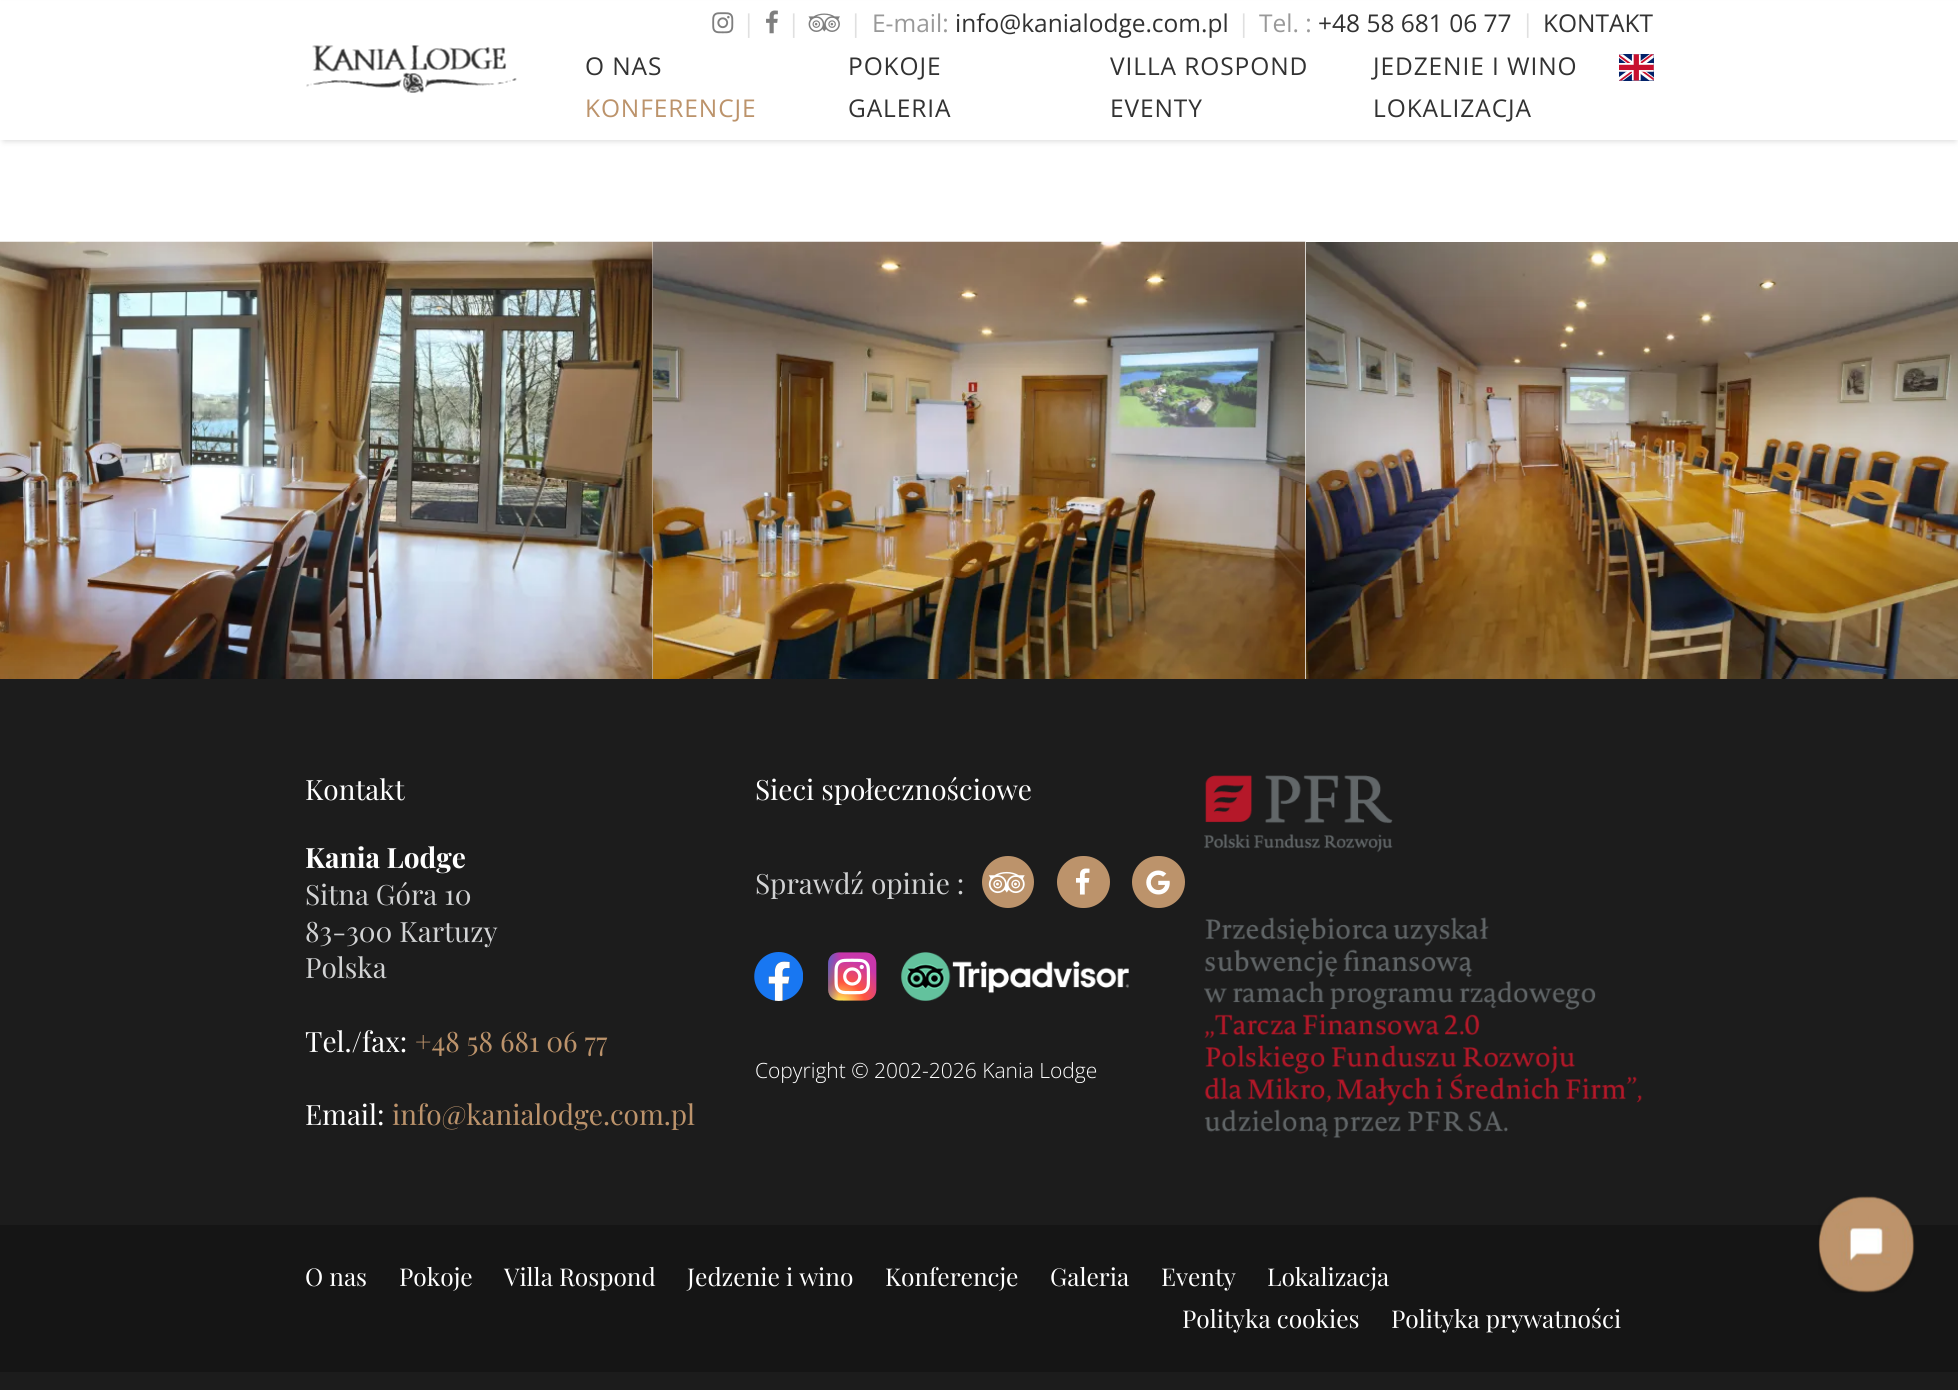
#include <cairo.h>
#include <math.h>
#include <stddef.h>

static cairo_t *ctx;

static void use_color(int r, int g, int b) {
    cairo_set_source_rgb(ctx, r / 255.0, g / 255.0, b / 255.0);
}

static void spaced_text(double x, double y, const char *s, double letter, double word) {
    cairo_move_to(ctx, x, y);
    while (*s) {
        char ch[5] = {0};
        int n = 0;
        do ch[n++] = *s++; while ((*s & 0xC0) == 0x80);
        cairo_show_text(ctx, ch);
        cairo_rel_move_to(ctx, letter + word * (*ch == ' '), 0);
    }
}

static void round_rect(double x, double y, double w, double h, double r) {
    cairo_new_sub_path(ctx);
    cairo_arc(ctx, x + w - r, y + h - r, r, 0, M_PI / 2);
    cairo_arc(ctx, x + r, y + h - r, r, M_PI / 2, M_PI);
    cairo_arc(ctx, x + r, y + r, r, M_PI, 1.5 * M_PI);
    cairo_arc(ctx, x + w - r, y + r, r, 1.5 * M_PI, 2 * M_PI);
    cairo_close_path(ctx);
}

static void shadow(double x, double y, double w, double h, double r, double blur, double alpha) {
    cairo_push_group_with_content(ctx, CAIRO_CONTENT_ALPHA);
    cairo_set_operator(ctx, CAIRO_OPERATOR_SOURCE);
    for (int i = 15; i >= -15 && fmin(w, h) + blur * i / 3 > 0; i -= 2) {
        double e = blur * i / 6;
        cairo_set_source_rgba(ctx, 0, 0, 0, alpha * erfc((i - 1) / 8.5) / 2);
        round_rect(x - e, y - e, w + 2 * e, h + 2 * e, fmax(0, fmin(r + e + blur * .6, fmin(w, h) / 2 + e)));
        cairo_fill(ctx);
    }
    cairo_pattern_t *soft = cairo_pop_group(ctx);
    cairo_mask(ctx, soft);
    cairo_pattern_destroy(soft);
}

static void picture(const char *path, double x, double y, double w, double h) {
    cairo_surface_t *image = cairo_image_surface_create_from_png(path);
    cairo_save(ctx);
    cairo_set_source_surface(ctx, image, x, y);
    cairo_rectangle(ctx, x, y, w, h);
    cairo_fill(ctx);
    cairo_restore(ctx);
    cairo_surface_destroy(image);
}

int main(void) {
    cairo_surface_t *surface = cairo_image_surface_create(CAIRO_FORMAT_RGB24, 1958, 1390);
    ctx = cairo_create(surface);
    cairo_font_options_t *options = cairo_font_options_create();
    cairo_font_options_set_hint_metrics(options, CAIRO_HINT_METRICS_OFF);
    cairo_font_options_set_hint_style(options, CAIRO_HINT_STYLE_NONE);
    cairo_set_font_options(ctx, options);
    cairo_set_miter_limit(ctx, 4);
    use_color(255, 255, 255);
    cairo_paint(ctx);
    use_color(156, 156, 156);
    shadow(4, 7, 1951, 133, 0, 3.5, 0.5);
    use_color(255, 255, 255);
    cairo_rectangle(ctx, 0, 1, 1958, 139);
    cairo_fill(ctx);
    picture("img1.png", 306, 45, 211, 48);
    picture("img2.png", 712, 12, 22, 22);
    cairo_select_font_face(ctx, "Open Sans", CAIRO_FONT_SLANT_NORMAL, CAIRO_FONT_WEIGHT_NORMAL);
    cairo_set_font_size(ctx, 24.5);
    use_color(224, 224, 224);
    cairo_move_to(ctx, 742, 32);
    cairo_show_text(ctx, "|");
    picture("img3.png", 766, 10, 12, 24);
    cairo_move_to(ctx, 787, 32);
    cairo_show_text(ctx, "|");
    picture("img4.png", 808, 13, 32, 19);
    cairo_move_to(ctx, 849, 32);
    cairo_show_text(ctx, "|");
    use_color(153, 153, 153);
    cairo_move_to(ctx, 872, 32);
    cairo_show_text(ctx, "E-mail:");
    use_color(50, 50, 50);
    cairo_move_to(ctx, 955, 32);
    cairo_show_text(ctx, "info@kanialodge.com.pl");
    use_color(224, 224, 224);
    cairo_move_to(ctx, 1237, 32);
    cairo_show_text(ctx, "|");
    use_color(153, 153, 153);
    cairo_move_to(ctx, 1259, 32);
    cairo_show_text(ctx, "Tel. :");
    use_color(50, 50, 50);
    cairo_move_to(ctx, 1318, 32);
    cairo_show_text(ctx, "+48 58 681 06 77");
    use_color(224, 224, 224);
    cairo_move_to(ctx, 1521, 32);
    cairo_show_text(ctx, "|");
    use_color(50, 50, 50);
    cairo_move_to(ctx, 1543, 32);
    cairo_show_text(ctx, "KONTAKT");
    spaced_text(585, 75, "O NAS", 0.9, 0);
    spaced_text(848, 75, "POKOJE", 0.9, 0);
    spaced_text(1110, 75, "VILLA ROSPOND", 0.9, 0);
    spaced_text(1373, 75, "JEDZENIE I WINO", 0.9, 0);
    picture("img5.png", 1619, 54, 35, 27);
    use_color(188, 147, 107);
    spaced_text(585, 117, "KONFERENCJE", 0.9, 0);
    use_color(50, 50, 50);
    spaced_text(848, 117, "GALERIA", 0.9, 0);
    spaced_text(1110, 117, "EVENTY", 0.9, 0);
    spaced_text(1373, 117, "LOKALIZACJA", 0.9, 0);
    picture("img6.png", 0, 241, 653, 438);
    picture("img7.png", 652, 241, 654, 438);
    picture("img8.png", 1306, 242, 652, 437);
    use_color(28, 28, 28);
    cairo_rectangle(ctx, 0, 679, 1958, 711);
    cairo_fill(ctx);
    cairo_select_font_face(ctx, "Playfair Display", CAIRO_FONT_SLANT_NORMAL, CAIRO_FONT_WEIGHT_NORMAL);
    cairo_set_font_size(ctx, 28);
    use_color(255, 255, 255);
    cairo_move_to(ctx, 305, 800);
    cairo_show_text(ctx, "Kontakt");
    cairo_select_font_face(ctx, "Playfair Display", CAIRO_FONT_SLANT_NORMAL, CAIRO_FONT_WEIGHT_BOLD);
    cairo_move_to(ctx, 305, 868);
    cairo_show_text(ctx, "Kania Lodge");
    cairo_select_font_face(ctx, "Playfair Display", CAIRO_FONT_SLANT_NORMAL, CAIRO_FONT_WEIGHT_NORMAL);
    use_color(209, 210, 211);
    cairo_move_to(ctx, 305, 905);
    cairo_show_text(ctx, "Sitna Góra 10");
    cairo_move_to(ctx, 305, 942);
    cairo_show_text(ctx, "83-300 Kartuzy");
    cairo_move_to(ctx, 305, 978);
    cairo_show_text(ctx, "Polska");
    use_color(255, 255, 255);
    cairo_move_to(ctx, 305, 1052);
    cairo_show_text(ctx, "Tel./fax:");
    use_color(188, 147, 107);
    cairo_move_to(ctx, 415, 1052);
    cairo_show_text(ctx, "+48 58 681 06 77");
    use_color(255, 255, 255);
    cairo_move_to(ctx, 305, 1125);
    cairo_show_text(ctx, "Email:");
    use_color(188, 147, 107);
    cairo_move_to(ctx, 392, 1125);
    cairo_show_text(ctx, "info@kanialodge.com.pl");
    use_color(255, 255, 255);
    cairo_move_to(ctx, 755, 800);
    cairo_show_text(ctx, "Sieci społecznościowe");
    use_color(209, 210, 211);
    cairo_move_to(ctx, 755, 894);
    cairo_show_text(ctx, "Sprawdź opinie :");
    use_color(188, 147, 107);
    cairo_new_path(ctx);
    cairo_arc(ctx, 1008, 882, 26, 0, 2 * M_PI);
    cairo_fill(ctx);
    picture("img9.png", 988, 871, 37, 23);
    round_rect(1057, 856, 53, 52, 26);
    cairo_fill(ctx);
    picture("img10.png", 1076, 868, 14, 27);
    round_rect(1132, 856, 53, 52, 26);
    cairo_fill(ctx);
    picture("img11.png", 1146, 870, 24, 25);
    picture("img12.png", 754, 952, 49, 49);
    picture("img13.png", 828, 952, 49, 49);
    picture("img14.png", 901, 952, 228, 49);
    cairo_select_font_face(ctx, "Open Sans Light", CAIRO_FONT_SLANT_NORMAL, CAIRO_FONT_WEIGHT_NORMAL);
    cairo_set_font_size(ctx, 21);
    use_color(255, 255, 255);
    cairo_move_to(ctx, 755, 1078);
    cairo_show_text(ctx, "Copyright © 2002-2026 Kania Lodge");
    picture("img15.png", 1204, 775, 438, 363);
    use_color(21, 21, 21);
    cairo_rectangle(ctx, 0, 1225, 1958, 147);
    cairo_fill(ctx);
    cairo_select_font_face(ctx, "Playfair Display", CAIRO_FONT_SLANT_NORMAL, CAIRO_FONT_WEIGHT_NORMAL);
    cairo_set_font_size(ctx, 24.5);
    use_color(255, 255, 255);
    cairo_move_to(ctx, 305, 1286);
    cairo_show_text(ctx, "O nas");
    cairo_move_to(ctx, 399, 1286);
    cairo_show_text(ctx, "Pokoje");
    cairo_move_to(ctx, 504, 1286);
    cairo_show_text(ctx, "Villa Rospond");
    cairo_move_to(ctx, 687, 1286);
    cairo_show_text(ctx, "Jedzenie i wino");
    cairo_move_to(ctx, 885, 1286);
    cairo_show_text(ctx, "Konferencje");
    cairo_move_to(ctx, 1050, 1286);
    cairo_show_text(ctx, "Galeria");
    cairo_move_to(ctx, 1161, 1286);
    cairo_show_text(ctx, "Eventy");
    cairo_move_to(ctx, 1267, 1286);
    cairo_show_text(ctx, "Lokalizacja");
    cairo_move_to(ctx, 1182, 1328);
    cairo_show_text(ctx, "Polityka cookies");
    cairo_move_to(ctx, 1391, 1328);
    cairo_show_text(ctx, "Polityka prywatności");
    picture("img16.png", 1818, 1196, 97, 97);
    cairo_surface_write_to_png(surface, "result.png");
    cairo_font_options_destroy(options);
    cairo_destroy(ctx);
    cairo_surface_destroy(surface);
    return 0;
}
